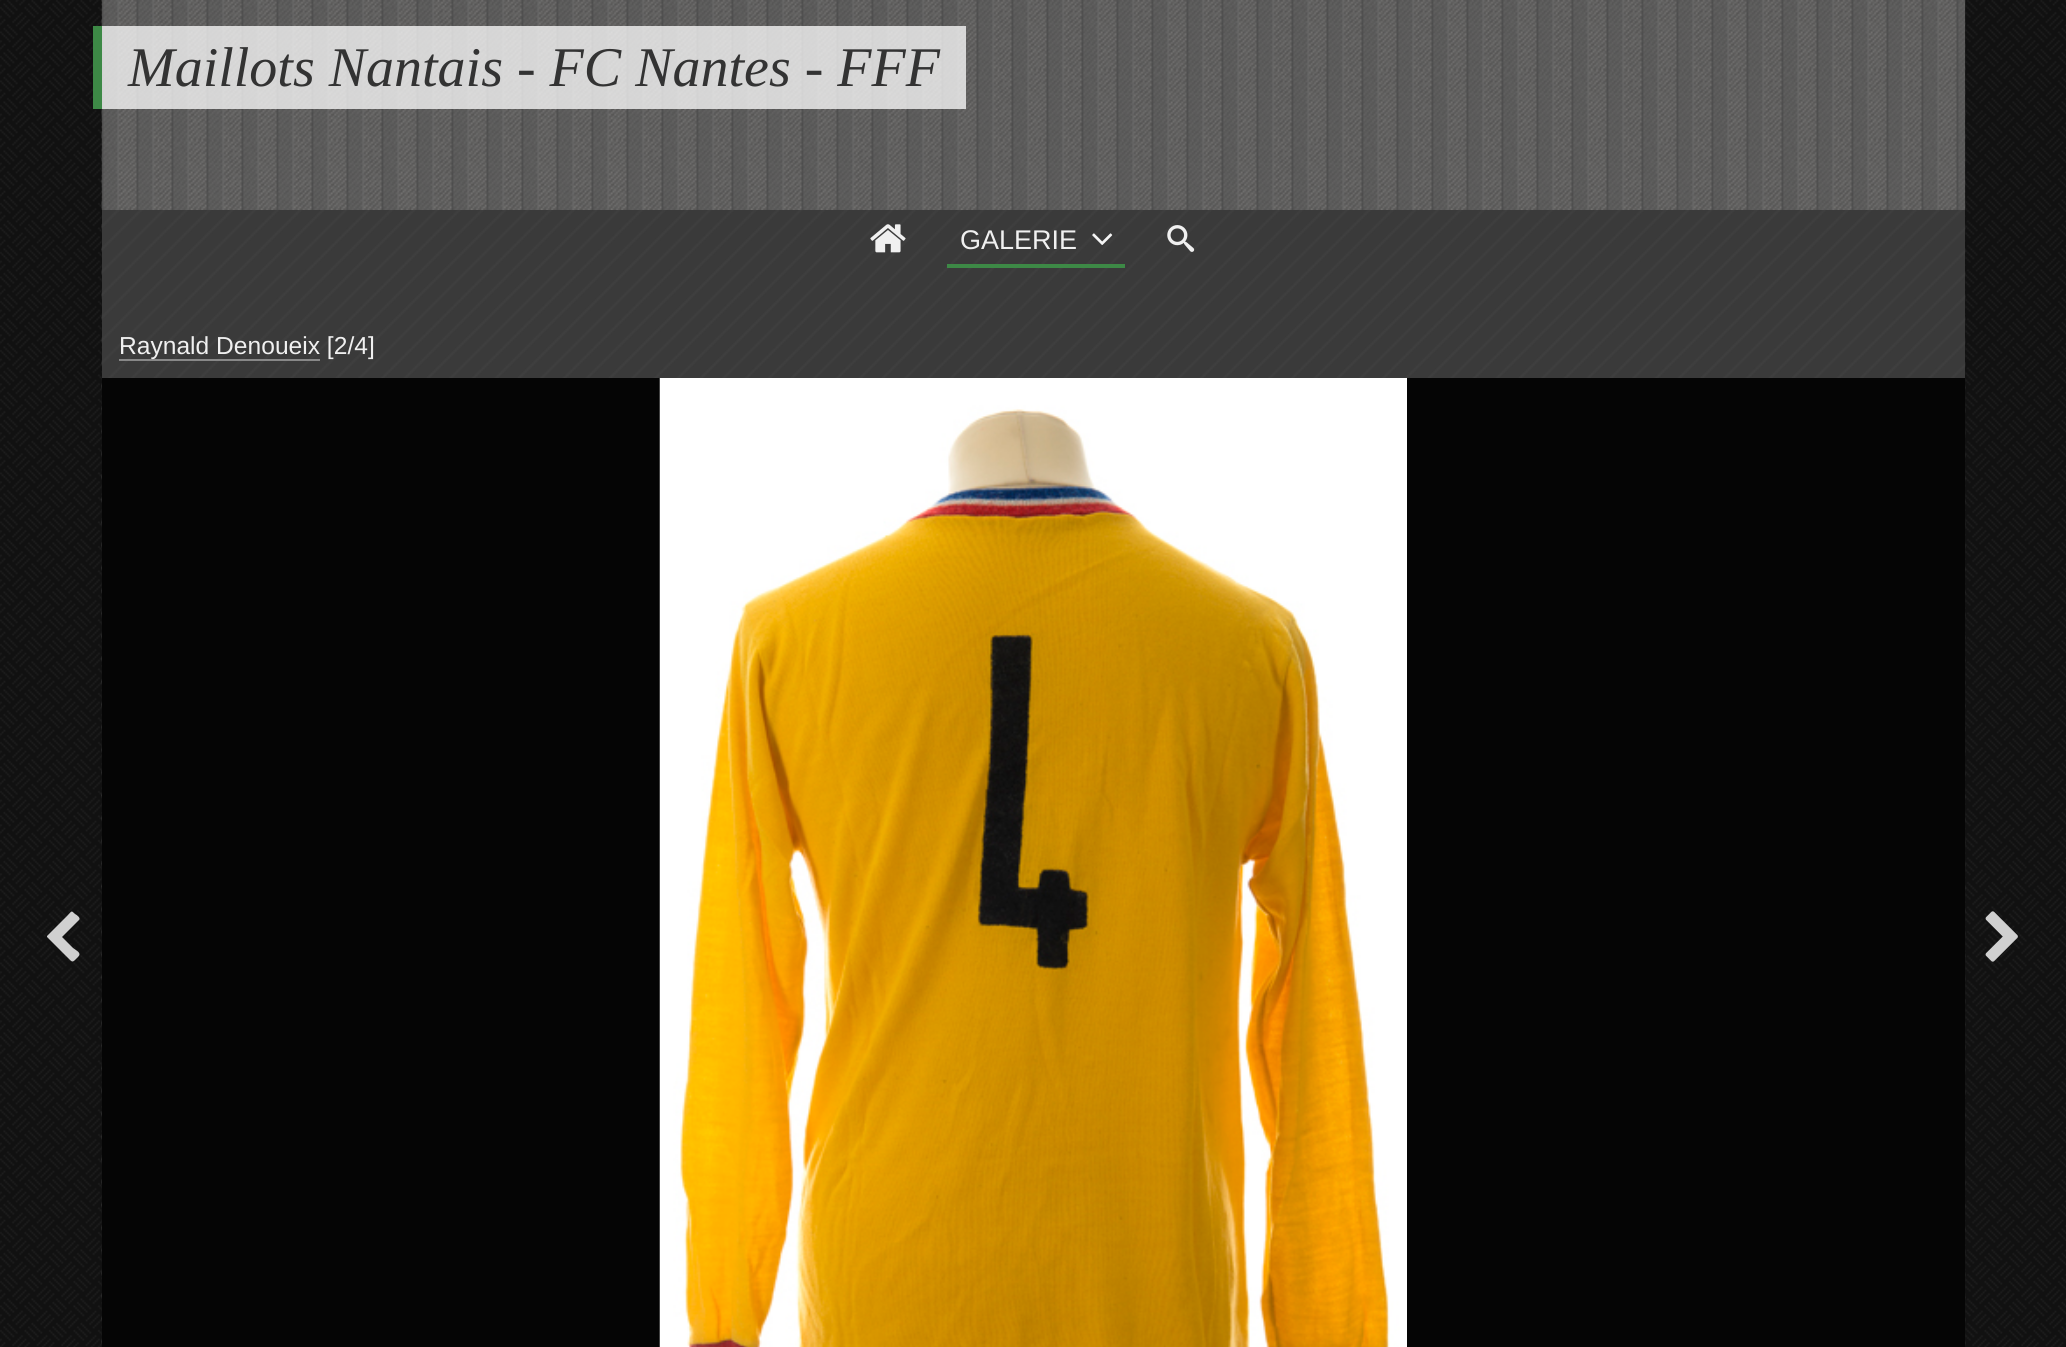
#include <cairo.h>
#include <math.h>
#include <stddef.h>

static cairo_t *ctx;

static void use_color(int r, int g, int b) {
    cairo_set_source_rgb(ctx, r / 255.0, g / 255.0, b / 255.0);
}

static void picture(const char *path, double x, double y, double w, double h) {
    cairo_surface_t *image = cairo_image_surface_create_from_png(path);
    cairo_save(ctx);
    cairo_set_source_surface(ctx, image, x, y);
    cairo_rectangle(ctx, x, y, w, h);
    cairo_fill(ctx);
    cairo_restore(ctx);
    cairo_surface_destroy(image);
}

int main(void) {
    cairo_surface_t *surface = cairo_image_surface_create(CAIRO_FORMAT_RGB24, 2066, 1347);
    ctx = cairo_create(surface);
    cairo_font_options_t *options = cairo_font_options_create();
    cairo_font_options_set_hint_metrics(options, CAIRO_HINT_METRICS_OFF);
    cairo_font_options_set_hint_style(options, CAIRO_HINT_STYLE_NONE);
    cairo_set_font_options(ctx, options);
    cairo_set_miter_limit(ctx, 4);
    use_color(17, 17, 17);
    cairo_paint(ctx);
    picture("img1.png", 0, 0, 2066, 1347);
    use_color(58, 58, 58);
    cairo_rectangle(ctx, 102, 210, 1863, 168);
    cairo_fill(ctx);
    picture("img2.png", 101, 0, 1865, 1346);
    use_color(76, 76, 76);
    cairo_rectangle(ctx, 102, 0, 1863, 210);
    cairo_fill(ctx);
    picture("img3.png", 101, 0, 1865, 210);
    cairo_set_source_rgba(ctx, 1, 1, 1, 0.75);
    cairo_rectangle(ctx, 102, 26, 864, 83);
    cairo_fill(ctx);
    use_color(61, 137, 70);
    cairo_rectangle(ctx, 93, 26, 9, 83);
    cairo_fill(ctx);
    cairo_select_font_face(ctx, "Liberation Serif", CAIRO_FONT_SLANT_ITALIC, CAIRO_FONT_WEIGHT_NORMAL);
    cairo_set_font_size(ctx, 56);
    use_color(51, 51, 51);
    cairo_move_to(ctx, 128, 86);
    cairo_show_text(ctx, "Maillots Nantais - FC Nantes - FFF");
    picture("img4.png", 870, 224, 36, 29);
    use_color(61, 137, 70);
    cairo_rectangle(ctx, 947, 264, 178, 4);
    cairo_fill(ctx);
    cairo_select_font_face(ctx, "Liberation Sans", CAIRO_FONT_SLANT_NORMAL, CAIRO_FONT_WEIGHT_NORMAL);
    cairo_set_font_size(ctx, 27);
    use_color(240, 240, 240);
    cairo_move_to(ctx, 960, 249);
    cairo_show_text(ctx, "GALERIE");
    picture("img5.png", 1092, 233, 21, 12);
    picture("img6.png", 1167, 225, 28, 27);
    use_color(136, 136, 136);
    cairo_rectangle(ctx, 119, 359, 201, 2);
    cairo_fill(ctx);
    cairo_set_font_size(ctx, 24.6);
    use_color(240, 240, 240);
    cairo_move_to(ctx, 119, 354);
    cairo_show_text(ctx, "Raynald Denoueix [2/4]");
    use_color(5, 5, 5);
    cairo_rectangle(ctx, 102, 378, 1863, 969);
    cairo_fill(ctx);
    use_color(208, 208, 208);
    cairo_new_path(ctx);
    cairo_move_to(ctx, 79, 920);
    cairo_line_to(ctx, 62, 937);
    cairo_line_to(ctx, 73, 948);
    cairo_curve_to(ctx, 77, 951, 82, 953, 78, 957);
    cairo_curve_to(ctx, 72, 963, 73, 963, 67, 957);
    cairo_line_to(ctx, 47, 937);
    cairo_line_to(ctx, 47, 936);
    cairo_line_to(ctx, 67, 916);
    cairo_curve_to(ctx, 72, 911, 71, 910, 75, 914);
    cairo_curve_to(ctx, 77, 915, 81, 918, 79, 920);
    cairo_close_path(ctx);
    cairo_fill(ctx);
    picture("img7.png", 659, 378, 748, 969);
    picture("img8.png", 1985, 911, 33, 51);
    cairo_surface_write_to_png(surface, "result.png");
    cairo_font_options_destroy(options);
    cairo_destroy(ctx);
    cairo_surface_destroy(surface);
    return 0;
}
